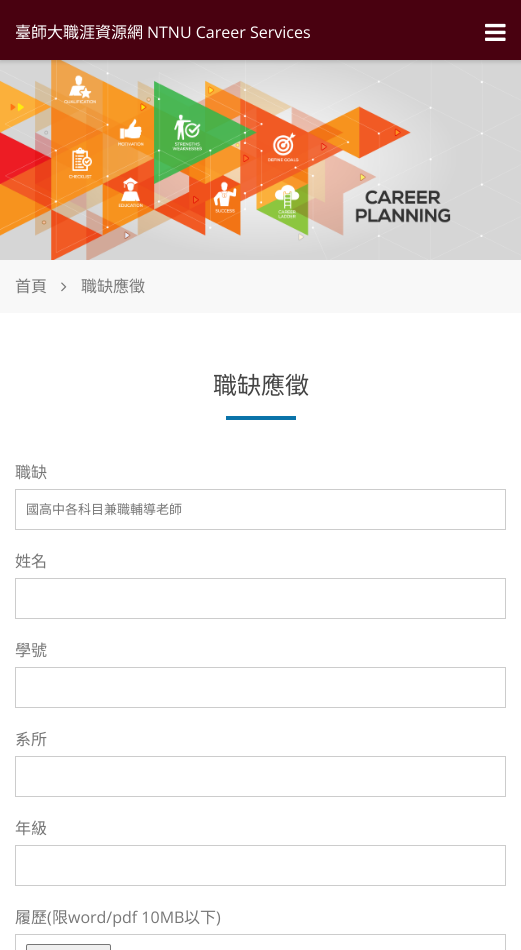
#include <cairo.h>
#include <math.h>
#include <stddef.h>

static cairo_t *ctx;

static void use_color(int r, int g, int b) {
    cairo_set_source_rgb(ctx, r / 255.0, g / 255.0, b / 255.0);
}

static void round_rect(double x, double y, double w, double h, double r) {
    cairo_new_sub_path(ctx);
    cairo_arc(ctx, x + w - r, y + h - r, r, 0, M_PI / 2);
    cairo_arc(ctx, x + r, y + h - r, r, M_PI / 2, M_PI);
    cairo_arc(ctx, x + r, y + r, r, M_PI, 1.5 * M_PI);
    cairo_arc(ctx, x + w - r, y + r, r, 1.5 * M_PI, 2 * M_PI);
    cairo_close_path(ctx);
}

static void shadow(double x, double y, double w, double h, double r, double blur, double alpha) {
    cairo_push_group_with_content(ctx, CAIRO_CONTENT_ALPHA);
    cairo_set_operator(ctx, CAIRO_OPERATOR_SOURCE);
    for (int i = 15; i >= -15 && fmin(w, h) + blur * i / 3 > 0; i -= 2) {
        double e = blur * i / 6;
        cairo_set_source_rgba(ctx, 0, 0, 0, alpha * erfc((i - 1) / 8.5) / 2);
        round_rect(x - e, y - e, w + 2 * e, h + 2 * e, fmax(0, fmin(r + e + blur * .6, fmin(w, h) / 2 + e)));
        cairo_fill(ctx);
    }
    cairo_pattern_t *soft = cairo_pop_group(ctx);
    cairo_mask(ctx, soft);
    cairo_pattern_destroy(soft);
}

static void picture(const char *path, double x, double y, double w, double h) {
    cairo_surface_t *image = cairo_image_surface_create_from_png(path);
    cairo_save(ctx);
    cairo_set_source_surface(ctx, image, x, y);
    cairo_rectangle(ctx, x, y, w, h);
    cairo_fill(ctx);
    cairo_restore(ctx);
    cairo_surface_destroy(image);
}

int main(void) {
    cairo_surface_t *surface = cairo_image_surface_create(CAIRO_FORMAT_RGB24, 521, 950);
    ctx = cairo_create(surface);
    cairo_font_options_t *options = cairo_font_options_create();
    cairo_font_options_set_hint_metrics(options, CAIRO_HINT_METRICS_OFF);
    cairo_font_options_set_hint_style(options, CAIRO_HINT_STYLE_NONE);
    cairo_set_font_options(ctx, options);
    cairo_set_miter_limit(ctx, 4);
    use_color(255, 255, 255);
    cairo_paint(ctx);
    picture("img2.png", 0, 60, 521, 200);
    use_color(1, 1, 1);
    shadow(0, 2, 521, 60, 0, 2, 0.15);
    use_color(73, 1, 16);
    cairo_rectangle(ctx, 0, 0, 521, 60);
    cairo_fill(ctx);
    cairo_select_font_face(ctx, "Noto Sans TC Thin", CAIRO_FONT_SLANT_NORMAL, CAIRO_FONT_WEIGHT_NORMAL);
    cairo_set_font_size(ctx, 16);
    use_color(255, 255, 255);
    cairo_move_to(ctx, 15, 38);
    cairo_show_text(ctx, "臺師大職涯資源網");
    cairo_select_font_face(ctx, "Open Sans", CAIRO_FONT_SLANT_NORMAL, CAIRO_FONT_WEIGHT_NORMAL);
    cairo_move_to(ctx, 147, 38);
    cairo_show_text(ctx, "NTNU Career Services");
    picture("img1.png", 485, 23, 21, 18);
    use_color(248, 248, 248);
    cairo_rectangle(ctx, 0, 260, 521, 53);
    cairo_fill(ctx);
    cairo_select_font_face(ctx, "Noto Sans TC Thin", CAIRO_FONT_SLANT_NORMAL, CAIRO_FONT_WEIGHT_NORMAL);
    use_color(119, 119, 119);
    cairo_move_to(ctx, 15, 292);
    cairo_show_text(ctx, "首頁");
    picture("img3.png", 61, 282, 6, 10);
    cairo_move_to(ctx, 81, 292);
    cairo_show_text(ctx, "職缺應徵");
    cairo_set_font_size(ctx, 24);
    use_color(68, 68, 68);
    cairo_move_to(ctx, 213, 394);
    cairo_show_text(ctx, "職缺應徵");
    use_color(10, 115, 169);
    cairo_rectangle(ctx, 226, 416, 70, 4);
    cairo_fill(ctx);
    cairo_set_font_size(ctx, 16);
    use_color(119, 119, 119);
    cairo_move_to(ctx, 15, 478);
    cairo_show_text(ctx, "職缺");
    cairo_rectangle(ctx, 15.5, 489.5, 490, 40);
    use_color(204, 204, 204);
    cairo_set_line_width(ctx, 1);
    cairo_stroke(ctx);
    cairo_set_font_size(ctx, 13);
    use_color(119, 119, 119);
    cairo_move_to(ctx, 26, 514);
    cairo_show_text(ctx, "國高中各科目兼職輔導老師");
    cairo_set_font_size(ctx, 16);
    cairo_move_to(ctx, 15, 567);
    cairo_show_text(ctx, "姓名");
    cairo_rectangle(ctx, 15.5, 578.5, 490, 40);
    use_color(204, 204, 204);
    cairo_stroke(ctx);
    use_color(119, 119, 119);
    cairo_move_to(ctx, 15, 656);
    cairo_show_text(ctx, "學號");
    cairo_rectangle(ctx, 15.5, 667.5, 490, 40);
    use_color(204, 204, 204);
    cairo_stroke(ctx);
    use_color(119, 119, 119);
    cairo_move_to(ctx, 15, 745);
    cairo_show_text(ctx, "系所");
    cairo_rectangle(ctx, 15.5, 756.5, 490, 40);
    use_color(204, 204, 204);
    cairo_stroke(ctx);
    use_color(119, 119, 119);
    cairo_move_to(ctx, 15, 834);
    cairo_show_text(ctx, "年級");
    cairo_rectangle(ctx, 15.5, 845.5, 490, 40);
    use_color(204, 204, 204);
    cairo_stroke(ctx);
    use_color(119, 119, 119);
    cairo_move_to(ctx, 15, 923);
    cairo_show_text(ctx, "履歷");
    cairo_select_font_face(ctx, "Open Sans", CAIRO_FONT_SLANT_NORMAL, CAIRO_FONT_WEIGHT_NORMAL);
    cairo_move_to(ctx, 47, 923);
    cairo_show_text(ctx, "(");
    cairo_select_font_face(ctx, "Noto Sans TC Thin", CAIRO_FONT_SLANT_NORMAL, CAIRO_FONT_WEIGHT_NORMAL);
    cairo_move_to(ctx, 52, 923);
    cairo_show_text(ctx, "限");
    cairo_select_font_face(ctx, "Open Sans", CAIRO_FONT_SLANT_NORMAL, CAIRO_FONT_WEIGHT_NORMAL);
    cairo_move_to(ctx, 68, 923);
    cairo_show_text(ctx, "word/pdf 10MB");
    cairo_select_font_face(ctx, "Noto Sans TC Thin", CAIRO_FONT_SLANT_NORMAL, CAIRO_FONT_WEIGHT_NORMAL);
    cairo_move_to(ctx, 184, 923);
    cairo_show_text(ctx, "以下");
    cairo_select_font_face(ctx, "Open Sans", CAIRO_FONT_SLANT_NORMAL, CAIRO_FONT_WEIGHT_NORMAL);
    cairo_move_to(ctx, 216, 923);
    cairo_show_text(ctx, ")");
    cairo_rectangle(ctx, 15.5, 934.5, 490, 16);
    use_color(204, 204, 204);
    cairo_stroke(ctx);
    use_color(239, 239, 239);
    round_rect(26.5, 944.5, 84, 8, 1.5);
    cairo_fill_preserve(ctx);
    use_color(118, 118, 118);
    cairo_stroke(ctx);
    cairo_surface_write_to_png(surface, "result.png");
    cairo_font_options_destroy(options);
    cairo_destroy(ctx);
    cairo_surface_destroy(surface);
    return 0;
}
